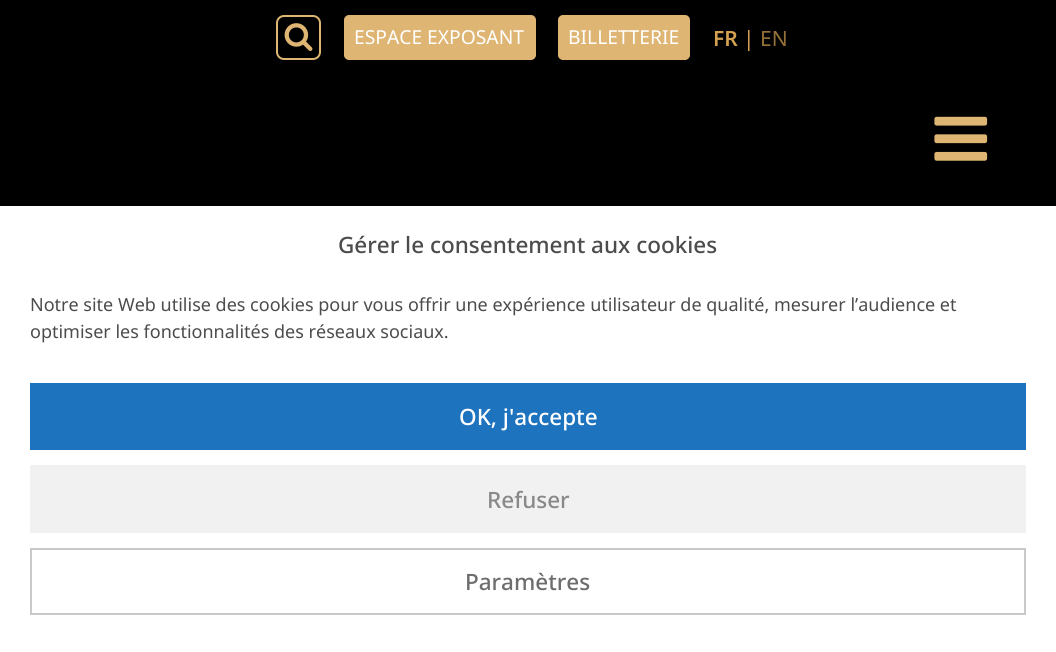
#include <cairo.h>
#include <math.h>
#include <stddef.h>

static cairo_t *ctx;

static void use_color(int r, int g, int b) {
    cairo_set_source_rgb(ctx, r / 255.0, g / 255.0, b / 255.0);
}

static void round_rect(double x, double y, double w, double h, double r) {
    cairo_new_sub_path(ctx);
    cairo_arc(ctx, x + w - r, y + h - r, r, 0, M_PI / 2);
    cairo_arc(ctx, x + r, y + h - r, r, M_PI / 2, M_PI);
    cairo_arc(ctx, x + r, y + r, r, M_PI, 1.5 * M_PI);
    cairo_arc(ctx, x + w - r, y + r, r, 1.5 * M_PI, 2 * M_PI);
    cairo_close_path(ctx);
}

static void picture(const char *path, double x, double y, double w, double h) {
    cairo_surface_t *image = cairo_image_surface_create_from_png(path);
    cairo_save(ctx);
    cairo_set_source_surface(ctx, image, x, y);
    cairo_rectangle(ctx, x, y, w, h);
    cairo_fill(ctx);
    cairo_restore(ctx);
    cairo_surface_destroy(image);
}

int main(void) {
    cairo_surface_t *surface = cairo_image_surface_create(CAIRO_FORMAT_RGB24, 1056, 652);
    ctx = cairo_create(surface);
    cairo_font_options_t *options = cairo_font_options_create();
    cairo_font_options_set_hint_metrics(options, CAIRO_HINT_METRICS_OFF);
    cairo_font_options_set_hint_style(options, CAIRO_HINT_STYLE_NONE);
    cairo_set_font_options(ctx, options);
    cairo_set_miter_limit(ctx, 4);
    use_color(0, 0, 0);
    cairo_paint(ctx);
    round_rect(277, 16, 43, 43, 7);
    use_color(222, 181, 115);
    cairo_stroke(ctx);
    picture("img1.png", 284, 23, 29, 28);
    round_rect(345, 16, 190, 43, 4);
    cairo_fill_preserve(ctx);
    cairo_stroke(ctx);
    cairo_select_font_face(ctx, "Noto Sans", CAIRO_FONT_SLANT_NORMAL, CAIRO_FONT_WEIGHT_NORMAL);
    cairo_set_font_size(ctx, 19.25);
    use_color(255, 255, 255);
    cairo_move_to(ctx, 354, 44);
    cairo_show_text(ctx, "ESPACE EXPOSANT");
    use_color(222, 181, 115);
    round_rect(559, 16, 130, 43, 4);
    cairo_fill_preserve(ctx);
    cairo_stroke(ctx);
    use_color(255, 255, 255);
    cairo_move_to(ctx, 568, 44);
    cairo_show_text(ctx, "BILLETTERIE");
    cairo_select_font_face(ctx, "Noto Sans SemiBold", CAIRO_FONT_SLANT_NORMAL, CAIRO_FONT_WEIGHT_NORMAL);
    cairo_set_font_size(ctx, 21);
    use_color(211, 161, 80);
    cairo_move_to(ctx, 713, 46);
    cairo_show_text(ctx, "FR");
    cairo_select_font_face(ctx, "Noto Sans", CAIRO_FONT_SLANT_NORMAL, CAIRO_FONT_WEIGHT_NORMAL);
    cairo_move_to(ctx, 743, 46);
    cairo_show_text(ctx, "|");
    use_color(148, 113, 56);
    cairo_move_to(ctx, 760, 46);
    cairo_show_text(ctx, "EN");
    picture("img2.png", 934, 116, 54, 45);
    use_color(255, 255, 255);
    cairo_rectangle(ctx, 0, 206, 1056, 446);
    cairo_fill(ctx);
    cairo_select_font_face(ctx, "Noto Sans Medium", CAIRO_FONT_SLANT_NORMAL, CAIRO_FONT_WEIGHT_NORMAL);
    cairo_set_font_size(ctx, 22.5);
    use_color(76, 76, 76);
    cairo_move_to(ctx, 338, 253);
    cairo_show_text(ctx, "Gérer le consentement aux cookies");
    cairo_select_font_face(ctx, "Noto Sans", CAIRO_FONT_SLANT_NORMAL, CAIRO_FONT_WEIGHT_NORMAL);
    cairo_set_font_size(ctx, 18);
    cairo_move_to(ctx, 30, 311);
    cairo_show_text(ctx, "Notre site Web utilise des cookies pour vous offrir une expérience utilisateur de qualité, mesurer l’audience et");
    cairo_move_to(ctx, 30, 338);
    cairo_show_text(ctx, "optimiser les fonctionnalités des réseaux sociaux.");
    use_color(30, 115, 190);
    cairo_rectangle(ctx, 30, 383, 996, 67);
    cairo_fill(ctx);
    cairo_select_font_face(ctx, "Noto Sans Medium", CAIRO_FONT_SLANT_NORMAL, CAIRO_FONT_WEIGHT_NORMAL);
    cairo_set_font_size(ctx, 22.5);
    use_color(255, 255, 255);
    cairo_move_to(ctx, 459, 425);
    cairo_show_text(ctx, "OK, j'accepte");
    use_color(241, 241, 241);
    cairo_rectangle(ctx, 30, 465, 996, 68);
    cairo_fill(ctx);
    use_color(137, 137, 137);
    cairo_move_to(ctx, 487, 508);
    cairo_show_text(ctx, "Refuser");
    cairo_rectangle(ctx, 31, 549, 994, 65);
    use_color(201, 201, 201);
    cairo_stroke(ctx);
    use_color(109, 109, 109);
    cairo_move_to(ctx, 465, 590);
    cairo_show_text(ctx, "Paramètres");
    cairo_surface_write_to_png(surface, "result.png");
    cairo_font_options_destroy(options);
    cairo_destroy(ctx);
    cairo_surface_destroy(surface);
    return 0;
}
